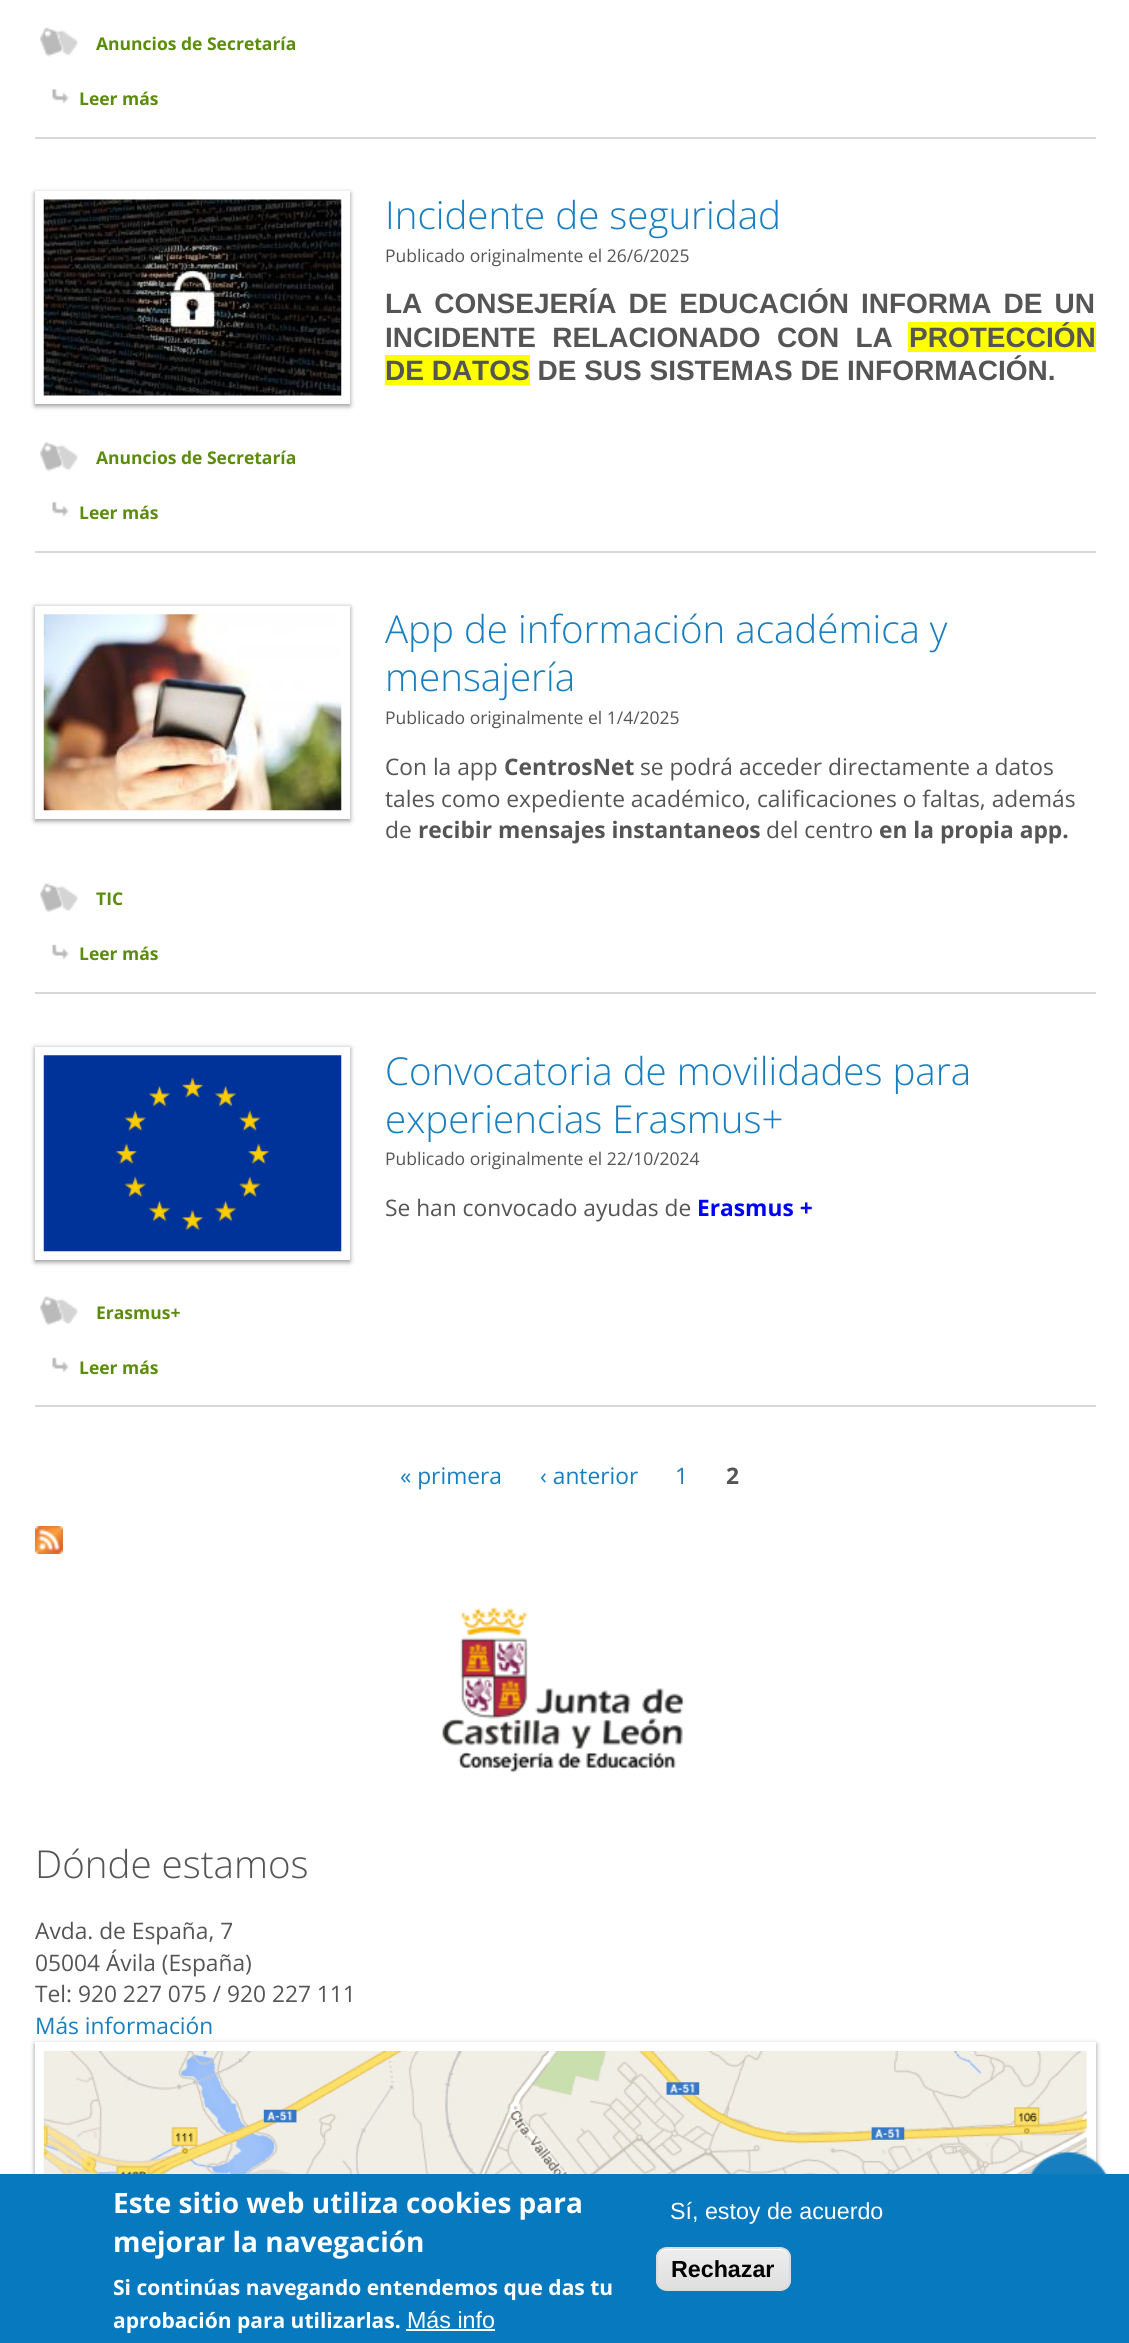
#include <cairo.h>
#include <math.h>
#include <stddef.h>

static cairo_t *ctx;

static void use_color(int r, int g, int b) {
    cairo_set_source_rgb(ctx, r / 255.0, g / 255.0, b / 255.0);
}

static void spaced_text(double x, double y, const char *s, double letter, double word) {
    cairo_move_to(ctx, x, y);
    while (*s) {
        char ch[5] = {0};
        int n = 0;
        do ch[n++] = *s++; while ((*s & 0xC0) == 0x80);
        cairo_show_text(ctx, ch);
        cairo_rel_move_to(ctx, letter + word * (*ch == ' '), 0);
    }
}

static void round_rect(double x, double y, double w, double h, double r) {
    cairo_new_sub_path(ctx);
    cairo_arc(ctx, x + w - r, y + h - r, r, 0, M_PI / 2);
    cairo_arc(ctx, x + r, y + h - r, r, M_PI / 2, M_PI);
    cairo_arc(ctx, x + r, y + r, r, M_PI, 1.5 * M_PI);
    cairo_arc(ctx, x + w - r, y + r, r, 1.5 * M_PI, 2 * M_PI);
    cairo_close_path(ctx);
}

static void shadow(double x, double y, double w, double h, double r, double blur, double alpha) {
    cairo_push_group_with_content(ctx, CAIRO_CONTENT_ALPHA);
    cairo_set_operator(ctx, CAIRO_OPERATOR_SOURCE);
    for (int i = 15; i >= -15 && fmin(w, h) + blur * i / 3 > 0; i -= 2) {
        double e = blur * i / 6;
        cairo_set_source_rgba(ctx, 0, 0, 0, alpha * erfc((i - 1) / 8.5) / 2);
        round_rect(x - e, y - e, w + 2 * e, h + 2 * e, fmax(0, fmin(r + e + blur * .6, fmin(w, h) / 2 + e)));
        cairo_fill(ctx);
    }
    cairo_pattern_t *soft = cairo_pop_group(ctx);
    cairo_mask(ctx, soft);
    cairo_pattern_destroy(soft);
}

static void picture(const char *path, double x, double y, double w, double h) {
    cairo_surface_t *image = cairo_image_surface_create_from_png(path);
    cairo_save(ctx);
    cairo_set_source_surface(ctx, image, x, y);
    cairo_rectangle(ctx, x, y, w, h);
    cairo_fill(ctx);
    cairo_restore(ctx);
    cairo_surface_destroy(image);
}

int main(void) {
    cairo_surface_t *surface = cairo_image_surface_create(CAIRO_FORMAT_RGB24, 1129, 2343);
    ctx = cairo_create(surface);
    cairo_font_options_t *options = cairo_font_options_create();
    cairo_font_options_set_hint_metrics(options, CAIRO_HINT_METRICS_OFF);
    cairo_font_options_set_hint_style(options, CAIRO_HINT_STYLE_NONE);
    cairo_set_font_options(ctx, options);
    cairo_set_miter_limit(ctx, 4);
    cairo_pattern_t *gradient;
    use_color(255, 255, 255);
    cairo_paint(ctx);
    use_color(216, 216, 216);
    cairo_rectangle(ctx, 35, 137, 1061, 2);
    cairo_fill(ctx);
    picture("img1.png", 40, 27, 38, 30);
    cairo_select_font_face(ctx, "Open Sans", CAIRO_FONT_SLANT_NORMAL, CAIRO_FONT_WEIGHT_BOLD);
    cairo_set_font_size(ctx, 17.5);
    use_color(91, 140, 11);
    cairo_move_to(ctx, 96, 50);
    cairo_show_text(ctx, "Anuncios de Secretaría");
    picture("img2.png", 52, 89, 17, 15);
    cairo_move_to(ctx, 79, 105);
    cairo_show_text(ctx, "Leer más");
    use_color(216, 216, 216);
    cairo_rectangle(ctx, 35, 551, 1061, 2);
    cairo_fill(ctx);
    cairo_save(ctx);
    cairo_set_fill_rule(ctx, CAIRO_FILL_RULE_EVEN_ODD);
    cairo_new_path(ctx);
    cairo_move_to(ctx, 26, 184);
    cairo_line_to(ctx, 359, 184);
    cairo_line_to(ctx, 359, 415);
    cairo_line_to(ctx, 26, 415);
    cairo_close_path(ctx);
    cairo_move_to(ctx, 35, 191);
    cairo_line_to(ctx, 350, 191);
    cairo_line_to(ctx, 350, 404);
    cairo_line_to(ctx, 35, 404);
    cairo_close_path(ctx);
    cairo_clip(ctx);
    use_color(150, 150, 150);
    shadow(35, 193, 315, 213, 0, 2.5, 1);
    cairo_restore(ctx);
    picture("img3.png", 43, 199, 299, 197);
    cairo_select_font_face(ctx, "Open Sans Light", CAIRO_FONT_SLANT_NORMAL, CAIRO_FONT_WEIGHT_NORMAL);
    cairo_set_font_size(ctx, 38.5);
    use_color(23, 126, 192);
    cairo_move_to(ctx, 385, 229);
    cairo_show_text(ctx, "Incidente de seguridad");
    cairo_select_font_face(ctx, "Open Sans", CAIRO_FONT_SLANT_NORMAL, CAIRO_FONT_WEIGHT_NORMAL);
    cairo_set_font_size(ctx, 17.5);
    use_color(85, 85, 85);
    cairo_move_to(ctx, 385, 262);
    cairo_show_text(ctx, "Publicado originalmente el 26/6/2025");
    cairo_select_font_face(ctx, "Liberation Sans", CAIRO_FONT_SLANT_NORMAL, CAIRO_FONT_WEIGHT_BOLD);
    cairo_set_font_size(ctx, 28);
    spaced_text(385, 313, "LA CONSEJERÍA DE EDUCACIÓN INFORMA DE UN", 0, 4.25);
    spaced_text(385, 347, "INCIDENTE RELACIONADO CON LA", 0, 8.5);
    use_color(255, 255, 0);
    cairo_rectangle(ctx, 908, 322, 188, 30);
    cairo_fill(ctx);
    use_color(85, 85, 85);
    cairo_move_to(ctx, 909, 347);
    cairo_show_text(ctx, "PROTECCIÓN");
    use_color(255, 255, 0);
    cairo_rectangle(ctx, 385, 355, 145, 30);
    cairo_fill(ctx);
    use_color(85, 85, 85);
    cairo_move_to(ctx, 385, 380);
    cairo_show_text(ctx, "DE DATOS DE SUS SISTEMAS DE INFORMACIÓN.");
    picture("img4.png", 40, 442, 38, 30);
    cairo_select_font_face(ctx, "Open Sans", CAIRO_FONT_SLANT_NORMAL, CAIRO_FONT_WEIGHT_BOLD);
    cairo_set_font_size(ctx, 17.5);
    use_color(91, 140, 11);
    cairo_move_to(ctx, 96, 464);
    cairo_show_text(ctx, "Anuncios de Secretaría");
    picture("img2.png", 52, 502, 17, 15);
    cairo_move_to(ctx, 79, 519);
    cairo_show_text(ctx, "Leer más");
    use_color(216, 216, 216);
    cairo_rectangle(ctx, 35, 992, 1061, 2);
    cairo_fill(ctx);
    cairo_save(ctx);
    cairo_set_fill_rule(ctx, CAIRO_FILL_RULE_EVEN_ODD);
    cairo_new_path(ctx);
    cairo_move_to(ctx, 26, 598);
    cairo_line_to(ctx, 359, 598);
    cairo_line_to(ctx, 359, 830);
    cairo_line_to(ctx, 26, 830);
    cairo_close_path(ctx);
    cairo_move_to(ctx, 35, 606);
    cairo_line_to(ctx, 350, 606);
    cairo_line_to(ctx, 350, 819);
    cairo_line_to(ctx, 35, 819);
    cairo_close_path(ctx);
    cairo_clip(ctx);
    use_color(150, 150, 150);
    shadow(35, 607, 315, 214, 0, 2.5, 1);
    cairo_restore(ctx);
    picture("img5.png", 43, 614, 299, 197);
    cairo_select_font_face(ctx, "Open Sans Light", CAIRO_FONT_SLANT_NORMAL, CAIRO_FONT_WEIGHT_NORMAL);
    cairo_set_font_size(ctx, 38.5);
    use_color(23, 126, 192);
    cairo_move_to(ctx, 385, 643);
    cairo_show_text(ctx, "App de información académica y");
    cairo_move_to(ctx, 385, 691);
    cairo_show_text(ctx, "mensajería");
    cairo_select_font_face(ctx, "Open Sans", CAIRO_FONT_SLANT_NORMAL, CAIRO_FONT_WEIGHT_NORMAL);
    cairo_set_font_size(ctx, 17.5);
    use_color(85, 85, 85);
    cairo_move_to(ctx, 385, 724);
    cairo_show_text(ctx, "Publicado originalmente el 1/4/2025");
    cairo_set_font_size(ctx, 22.75);
    cairo_move_to(ctx, 385, 775);
    cairo_show_text(ctx, "Con la app");
    cairo_select_font_face(ctx, "Open Sans", CAIRO_FONT_SLANT_NORMAL, CAIRO_FONT_WEIGHT_BOLD);
    cairo_move_to(ctx, 504, 775);
    cairo_show_text(ctx, "CentrosNet");
    cairo_select_font_face(ctx, "Open Sans", CAIRO_FONT_SLANT_NORMAL, CAIRO_FONT_WEIGHT_NORMAL);
    cairo_move_to(ctx, 640, 775);
    cairo_show_text(ctx, "se podrá acceder directamente a datos");
    cairo_move_to(ctx, 385, 807);
    cairo_show_text(ctx, "tales como expediente académico, calificaciones o faltas, además");
    cairo_move_to(ctx, 385, 838);
    cairo_show_text(ctx, "de");
    cairo_select_font_face(ctx, "Open Sans", CAIRO_FONT_SLANT_NORMAL, CAIRO_FONT_WEIGHT_BOLD);
    cairo_move_to(ctx, 418, 838);
    cairo_show_text(ctx, "recibir mensajes instantaneos");
    cairo_select_font_face(ctx, "Open Sans", CAIRO_FONT_SLANT_NORMAL, CAIRO_FONT_WEIGHT_NORMAL);
    cairo_move_to(ctx, 766, 838);
    cairo_show_text(ctx, "del centro");
    cairo_select_font_face(ctx, "Open Sans", CAIRO_FONT_SLANT_NORMAL, CAIRO_FONT_WEIGHT_BOLD);
    cairo_move_to(ctx, 879, 838);
    cairo_show_text(ctx, "en la propia app.");
    picture("img4.png", 40, 883, 38, 30);
    cairo_set_font_size(ctx, 17.5);
    use_color(91, 140, 11);
    cairo_move_to(ctx, 96, 905);
    cairo_show_text(ctx, "TIC");
    picture("img6.png", 52, 944, 17, 16);
    cairo_move_to(ctx, 79, 960);
    cairo_show_text(ctx, "Leer más");
    use_color(216, 216, 216);
    cairo_rectangle(ctx, 35, 1405, 1061, 2);
    cairo_fill(ctx);
    cairo_save(ctx);
    cairo_set_fill_rule(ctx, CAIRO_FILL_RULE_EVEN_ODD);
    cairo_new_path(ctx);
    cairo_move_to(ctx, 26, 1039);
    cairo_line_to(ctx, 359, 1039);
    cairo_line_to(ctx, 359, 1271);
    cairo_line_to(ctx, 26, 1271);
    cairo_close_path(ctx);
    cairo_move_to(ctx, 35, 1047);
    cairo_line_to(ctx, 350, 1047);
    cairo_line_to(ctx, 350, 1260);
    cairo_line_to(ctx, 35, 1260);
    cairo_close_path(ctx);
    cairo_clip(ctx);
    use_color(150, 150, 150);
    shadow(35, 1048, 315, 214, 0, 2.5, 1);
    cairo_restore(ctx);
    picture("img7.png", 43, 1055, 299, 197);
    cairo_select_font_face(ctx, "Open Sans Light", CAIRO_FONT_SLANT_NORMAL, CAIRO_FONT_WEIGHT_NORMAL);
    cairo_set_font_size(ctx, 38.5);
    use_color(23, 126, 192);
    cairo_move_to(ctx, 385, 1085);
    cairo_show_text(ctx, "Convocatoria de movilidades para");
    cairo_move_to(ctx, 385, 1133);
    cairo_show_text(ctx, "experiencias Erasmus+");
    cairo_select_font_face(ctx, "Open Sans", CAIRO_FONT_SLANT_NORMAL, CAIRO_FONT_WEIGHT_NORMAL);
    cairo_set_font_size(ctx, 17.5);
    use_color(85, 85, 85);
    cairo_move_to(ctx, 385, 1165);
    cairo_show_text(ctx, "Publicado originalmente el 22/10/2024");
    cairo_set_font_size(ctx, 22.75);
    cairo_move_to(ctx, 385, 1216);
    cairo_show_text(ctx, "Se han convocado ayudas de");
    cairo_select_font_face(ctx, "Open Sans", CAIRO_FONT_SLANT_NORMAL, CAIRO_FONT_WEIGHT_BOLD);
    use_color(0, 0, 255);
    cairo_move_to(ctx, 697, 1216);
    cairo_show_text(ctx, "Erasmus +");
    picture("img4.png", 40, 1296, 38, 30);
    cairo_set_font_size(ctx, 17.5);
    use_color(91, 140, 11);
    cairo_move_to(ctx, 96, 1319);
    cairo_show_text(ctx, "Erasmus+");
    picture("img6.png", 52, 1357, 17, 16);
    cairo_move_to(ctx, 79, 1374);
    cairo_show_text(ctx, "Leer más");
    cairo_select_font_face(ctx, "Open Sans", CAIRO_FONT_SLANT_NORMAL, CAIRO_FONT_WEIGHT_NORMAL);
    cairo_set_font_size(ctx, 22.75);
    use_color(23, 126, 192);
    cairo_move_to(ctx, 400, 1484);
    cairo_show_text(ctx, "« primera");
    cairo_move_to(ctx, 540, 1484);
    cairo_show_text(ctx, "‹ anterior");
    cairo_move_to(ctx, 675, 1484);
    cairo_show_text(ctx, "1");
    cairo_select_font_face(ctx, "Open Sans", CAIRO_FONT_SLANT_NORMAL, CAIRO_FONT_WEIGHT_BOLD);
    use_color(85, 85, 85);
    cairo_move_to(ctx, 726, 1484);
    cairo_show_text(ctx, "2");
    picture("img8.png", 35, 1526, 28, 28);
    picture("img9.png", 442, 1606, 243, 167);
    cairo_select_font_face(ctx, "Open Sans Light", CAIRO_FONT_SLANT_NORMAL, CAIRO_FONT_WEIGHT_NORMAL);
    cairo_set_font_size(ctx, 38.5);
    cairo_move_to(ctx, 35, 1878);
    cairo_show_text(ctx, "Dónde estamos");
    cairo_select_font_face(ctx, "Open Sans", CAIRO_FONT_SLANT_NORMAL, CAIRO_FONT_WEIGHT_NORMAL);
    cairo_set_font_size(ctx, 22.75);
    cairo_move_to(ctx, 35, 1939);
    cairo_show_text(ctx, "Avda. de España, 7");
    cairo_move_to(ctx, 35, 1971);
    cairo_show_text(ctx, "05004 Ávila (España)");
    cairo_move_to(ctx, 35, 2002);
    cairo_show_text(ctx, "Tel: 920 227 075 / 920 227 111");
    use_color(23, 126, 192);
    cairo_move_to(ctx, 35, 2034);
    cairo_show_text(ctx, "Más información");
    cairo_save(ctx);
    cairo_set_fill_rule(ctx, CAIRO_FILL_RULE_EVEN_ODD);
    cairo_new_path(ctx);
    cairo_move_to(ctx, 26, 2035);
    cairo_line_to(ctx, 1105, 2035);
    cairo_line_to(ctx, 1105, 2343);
    cairo_line_to(ctx, 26, 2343);
    cairo_close_path(ctx);
    cairo_move_to(ctx, 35, 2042);
    cairo_line_to(ctx, 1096, 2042);
    cairo_line_to(ctx, 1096, 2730);
    cairo_line_to(ctx, 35, 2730);
    cairo_close_path(ctx);
    cairo_clip(ctx);
    use_color(150, 150, 150);
    shadow(35, 2044, 1061, 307, 0, 2.5, 1);
    cairo_restore(ctx);
    picture("img10.png", 43, 2051, 1044, 123);
    picture("img11.png", 1030, 2150, 78, 24);
    use_color(7, 121, 191);
    cairo_rectangle(ctx, 0, 2174, 1129, 169);
    cairo_fill(ctx);
    cairo_select_font_face(ctx, "Open Sans", CAIRO_FONT_SLANT_NORMAL, CAIRO_FONT_WEIGHT_BOLD);
    cairo_set_font_size(ctx, 28);
    use_color(255, 255, 255);
    cairo_move_to(ctx, 113, 2213);
    cairo_show_text(ctx, "Este sitio web utiliza cookies para");
    cairo_move_to(ctx, 113, 2252);
    cairo_show_text(ctx, "mejorar la navegación");
    cairo_set_font_size(ctx, 21);
    cairo_move_to(ctx, 113, 2295);
    cairo_show_text(ctx, "Si continúas navegando entendemos que das tu");
    cairo_move_to(ctx, 113, 2328);
    cairo_show_text(ctx, "aprobación para utilizarlas.");
    cairo_select_font_face(ctx, "Liberation Sans", CAIRO_FONT_SLANT_NORMAL, CAIRO_FONT_WEIGHT_NORMAL);
    cairo_set_font_size(ctx, 23.25);
    cairo_move_to(ctx, 407, 2328);
    cairo_show_text(ctx, "Más info");
    cairo_rectangle(ctx, 406, 2329, 89, 2);
    cairo_fill(ctx);
    cairo_move_to(ctx, 670, 2219);
    cairo_show_text(ctx, "Sí, estoy de acuerdo");
    cairo_save(ctx);
    round_rect(656, 2247, 135, 44, 11);
    cairo_clip(ctx);
    gradient = cairo_pattern_create_linear(724, 2249, 724, 2289);
    cairo_pattern_add_color_stop_rgba(gradient, 0.05, 0.929, 0.929, 0.929, 1);
    cairo_pattern_add_color_stop_rgba(gradient, 1, 0.875, 0.875, 0.875, 1);
    cairo_set_source(ctx, gradient);
    cairo_pattern_destroy(gradient);
    cairo_rectangle(ctx, 656, 2249, 135, 40);
    cairo_fill(ctx);
    cairo_restore(ctx);
    cairo_new_path(ctx);
    cairo_move_to(ctx, 667, 2250);
    cairo_line_to(ctx, 780, 2250);
    cairo_curve_to(ctx, 785, 2250, 789, 2254, 789, 2259);
    cairo_curve_to(ctx, 789, 2244, 770, 2249, 761, 2249);
    cairo_line_to(ctx, 686, 2249);
    cairo_curve_to(ctx, 677, 2249, 658, 2244, 658, 2259);
    cairo_curve_to(ctx, 658, 2254, 662, 2250, 667, 2250);
    cairo_close_path(ctx);
    cairo_fill(ctx);
    round_rect(657, 2248, 133, 42, 10);
    use_color(220, 220, 220);
    cairo_stroke(ctx);
    cairo_select_font_face(ctx, "Liberation Sans", CAIRO_FONT_SLANT_NORMAL, CAIRO_FONT_WEIGHT_BOLD);
    use_color(0, 0, 0);
    cairo_move_to(ctx, 671, 2277);
    cairo_show_text(ctx, "Rechazar");
    cairo_surface_write_to_png(surface, "result.png");
    cairo_font_options_destroy(options);
    cairo_destroy(ctx);
    cairo_surface_destroy(surface);
    return 0;
}
